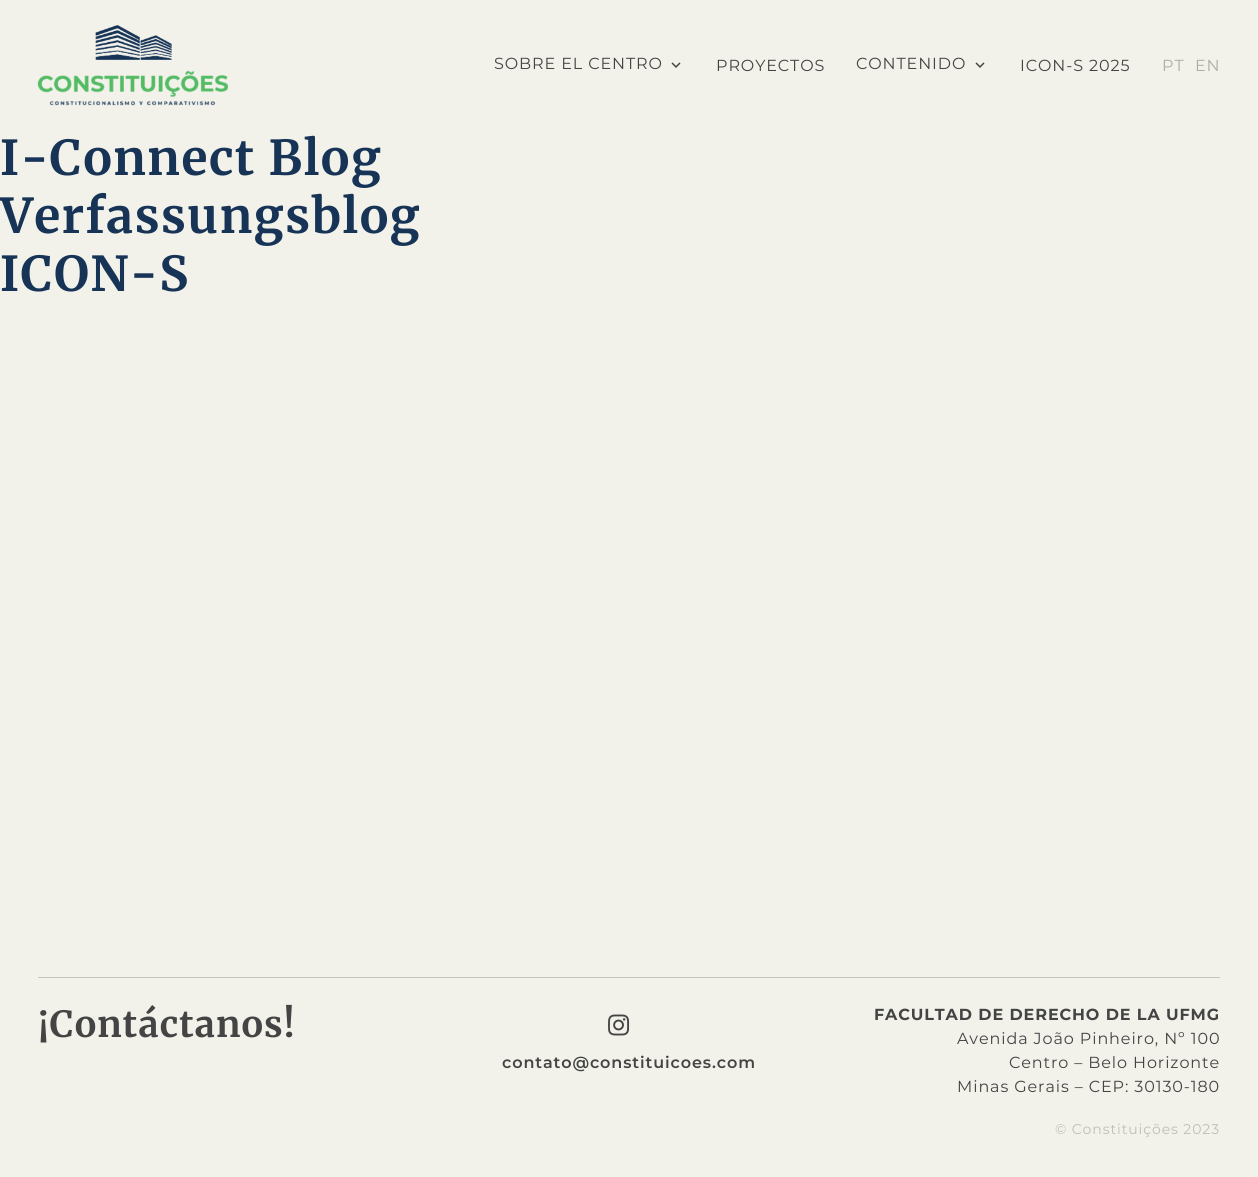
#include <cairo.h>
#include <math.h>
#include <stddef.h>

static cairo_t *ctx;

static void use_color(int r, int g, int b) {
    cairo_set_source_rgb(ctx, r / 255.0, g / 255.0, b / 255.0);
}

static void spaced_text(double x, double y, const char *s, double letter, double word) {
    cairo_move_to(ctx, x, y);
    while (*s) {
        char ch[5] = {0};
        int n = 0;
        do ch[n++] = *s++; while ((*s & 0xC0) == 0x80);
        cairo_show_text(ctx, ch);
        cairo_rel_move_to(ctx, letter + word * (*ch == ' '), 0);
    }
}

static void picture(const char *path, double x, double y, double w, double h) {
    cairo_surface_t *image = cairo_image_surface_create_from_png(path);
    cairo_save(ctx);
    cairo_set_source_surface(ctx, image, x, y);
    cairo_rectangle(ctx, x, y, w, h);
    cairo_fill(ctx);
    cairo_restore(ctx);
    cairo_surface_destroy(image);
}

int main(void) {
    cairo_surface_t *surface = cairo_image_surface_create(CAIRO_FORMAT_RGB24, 1258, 1177);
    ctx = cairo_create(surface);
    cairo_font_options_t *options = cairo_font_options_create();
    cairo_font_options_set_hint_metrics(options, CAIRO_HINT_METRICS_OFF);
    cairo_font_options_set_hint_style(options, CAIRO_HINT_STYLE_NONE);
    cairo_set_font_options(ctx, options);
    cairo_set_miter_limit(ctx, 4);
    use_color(242, 242, 235);
    cairo_paint(ctx);
    picture("img1.png", 37, 25, 192, 81);
    cairo_select_font_face(ctx, "Montserrat", CAIRO_FONT_SLANT_NORMAL, CAIRO_FONT_WEIGHT_NORMAL);
    cairo_set_font_size(ctx, 16);
    use_color(68, 68, 68);
    spaced_text(494, 69, "SOBRE EL CENTRO", 0.9, 0);
    picture("img2.png", 671, 62, 10, 6);
    spaced_text(716, 71, "PROYECTOS", 0.9, 0);
    spaced_text(856, 69, "CONTENIDO", 0.9, 0);
    picture("img2.png", 975, 62, 10, 6);
    spaced_text(1020, 71, "ICON-S 2025", 0.9, 0);
    use_color(172, 172, 168);
    spaced_text(1162, 71, "PT", 0.9, 0);
    spaced_text(1195, 71, "EN", 0.9, 0);
    cairo_select_font_face(ctx, "Merriweather", CAIRO_FONT_SLANT_NORMAL, CAIRO_FONT_WEIGHT_BOLD);
    cairo_set_font_size(ctx, 48);
    use_color(23, 52, 86);
    spaced_text(0, 175, "I-Connect Blog", 1.5, 0);
    spaced_text(0, 233, "Verfassungsblog", 1.5, 0);
    spaced_text(0, 291, "ICON-S", 1.5, 0);
    use_color(198, 198, 193);
    cairo_rectangle(ctx, 38, 977, 1182, 1);
    cairo_fill(ctx);
    cairo_set_font_size(ctx, 36);
    use_color(68, 68, 68);
    spaced_text(38, 1037, "¡Contáctanos!", 1.1, 0);
    picture("img3.png", 608, 1014, 22, 22);
    cairo_select_font_face(ctx, "Montserrat SemiBold", CAIRO_FONT_SLANT_NORMAL, CAIRO_FONT_WEIGHT_NORMAL);
    cairo_set_font_size(ctx, 16);
    spaced_text(502, 1068, "contato@constituicoes.com", 0.9, 0);
    cairo_select_font_face(ctx, "Montserrat", CAIRO_FONT_SLANT_NORMAL, CAIRO_FONT_WEIGHT_BOLD);
    spaced_text(874, 1020, "FACULTAD DE DERECHO DE LA UFMG", 0.9, 0);
    cairo_select_font_face(ctx, "Montserrat", CAIRO_FONT_SLANT_NORMAL, CAIRO_FONT_WEIGHT_NORMAL);
    spaced_text(957, 1044, "Avenida João Pinheiro, Nº 100", 0.9, 0);
    spaced_text(1009, 1068, "Centro – Belo Horizonte", 0.9, 0);
    spaced_text(957, 1092, "Minas Gerais – CEP: 30130-180", 0.9, 0);
    cairo_set_font_size(ctx, 14);
    use_color(190, 190, 185);
    spaced_text(1055, 1134, "© Constituições 2023", 0.9, 0);
    cairo_surface_write_to_png(surface, "result.png");
    cairo_font_options_destroy(options);
    cairo_destroy(ctx);
    cairo_surface_destroy(surface);
    return 0;
}
